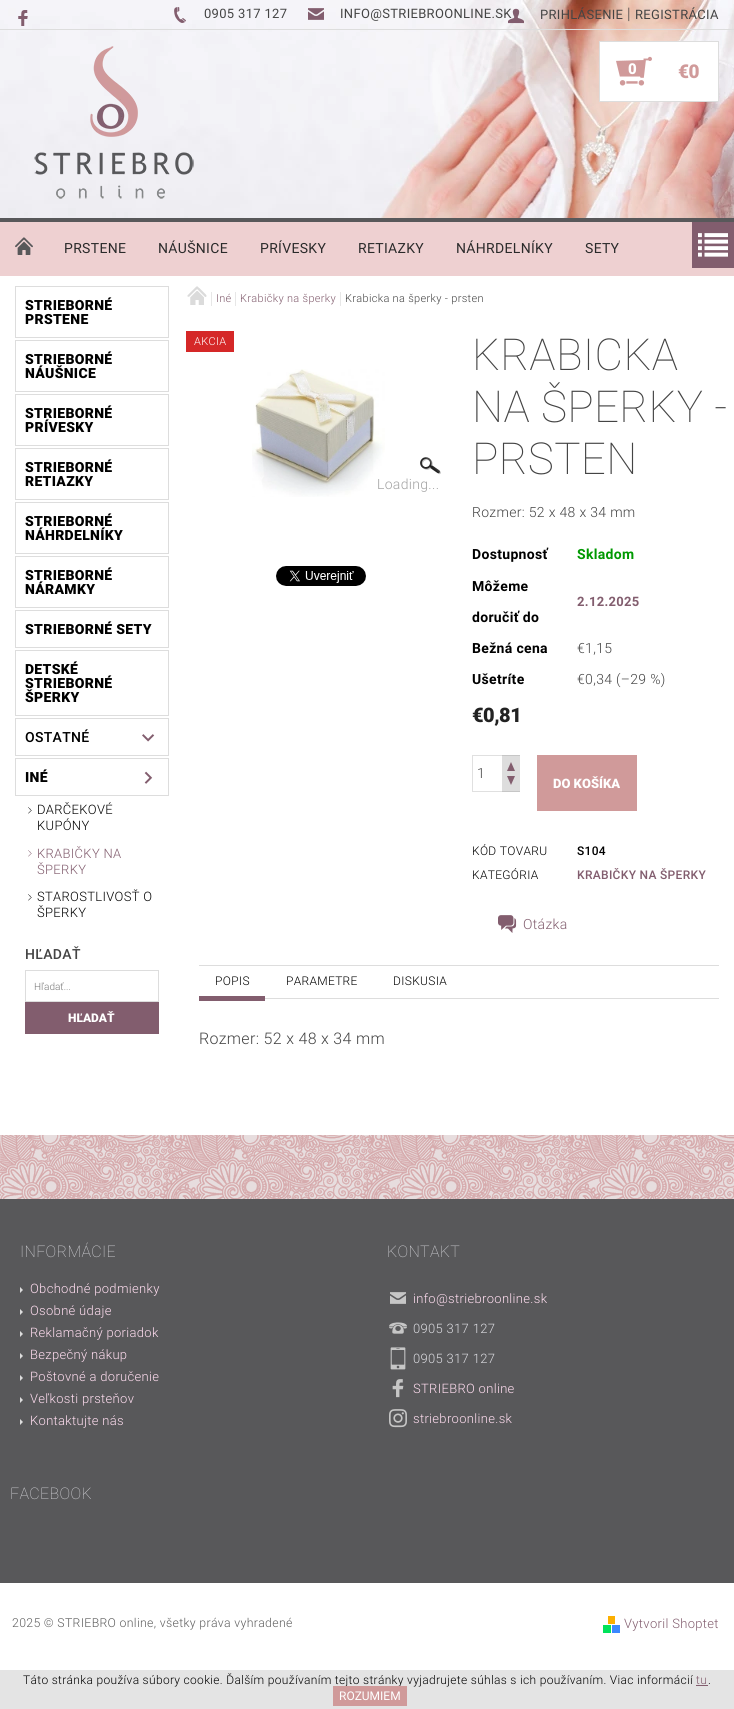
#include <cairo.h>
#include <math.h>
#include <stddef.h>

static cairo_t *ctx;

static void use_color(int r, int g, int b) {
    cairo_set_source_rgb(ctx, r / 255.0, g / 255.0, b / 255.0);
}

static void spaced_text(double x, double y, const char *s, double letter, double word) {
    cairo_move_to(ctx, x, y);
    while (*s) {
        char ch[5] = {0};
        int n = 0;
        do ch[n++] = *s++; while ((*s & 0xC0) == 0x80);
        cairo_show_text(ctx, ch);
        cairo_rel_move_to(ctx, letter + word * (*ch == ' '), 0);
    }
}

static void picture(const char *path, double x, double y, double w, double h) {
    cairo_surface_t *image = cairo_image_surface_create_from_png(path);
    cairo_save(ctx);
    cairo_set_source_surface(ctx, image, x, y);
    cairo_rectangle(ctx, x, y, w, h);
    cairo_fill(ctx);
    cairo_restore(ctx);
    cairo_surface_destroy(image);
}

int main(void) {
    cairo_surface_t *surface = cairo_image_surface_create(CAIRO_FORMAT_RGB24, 734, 1709);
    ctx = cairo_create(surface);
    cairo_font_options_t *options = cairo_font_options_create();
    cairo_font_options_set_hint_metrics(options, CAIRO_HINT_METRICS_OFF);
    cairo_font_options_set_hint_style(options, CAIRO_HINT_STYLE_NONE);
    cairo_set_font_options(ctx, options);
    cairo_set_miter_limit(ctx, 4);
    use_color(255, 255, 255);
    cairo_paint(ctx);
    picture("img1.png", 0, 1135, 734, 64);
    picture("img2.png", 0, 0, 734, 218);
    use_color(221, 221, 221);
    cairo_rectangle(ctx, 0, 29, 734, 1);
    cairo_fill(ctx);
    picture("img3.png", 18, 10, 10, 16);
    picture("img4.png", 174, 7, 12, 16);
    cairo_select_font_face(ctx, "Roboto", CAIRO_FONT_SLANT_NORMAL, CAIRO_FONT_WEIGHT_NORMAL);
    cairo_set_font_size(ctx, 13);
    use_color(68, 68, 68);
    spaced_text(204, 18, "0905 317 127", 0.32, 0);
    picture("img5.png", 308, 8, 16, 12);
    spaced_text(340, 18, "INFO@STRIEBROONLINE.SK", 0.32, 0);
    picture("img6.png", 508, 8, 16, 16);
    spaced_text(540, 19, "PRIHLÁSENIE", 0.32, 0);
    cairo_select_font_face(ctx, "Roboto Light", CAIRO_FONT_SLANT_NORMAL, CAIRO_FONT_WEIGHT_NORMAL);
    cairo_set_font_size(ctx, 16);
    spaced_text(627, 19, "|", 0.32, 0);
    cairo_select_font_face(ctx, "Roboto", CAIRO_FONT_SLANT_NORMAL, CAIRO_FONT_WEIGHT_NORMAL);
    cairo_set_font_size(ctx, 13);
    spaced_text(635, 19, "REGISTRÁCIA", 0.32, 0);
    picture("img7.png", 34, 46, 160, 153);
    use_color(255, 255, 255);
    cairo_rectangle(ctx, 599.5, 41.5, 119, 60);
    cairo_fill_preserve(ctx);
    use_color(221, 221, 221);
    cairo_set_line_width(ctx, 1);
    cairo_stroke(ctx);
    picture("img8.png", 616, 56, 36, 30);
    cairo_select_font_face(ctx, "Roboto Black", CAIRO_FONT_SLANT_NORMAL, CAIRO_FONT_WEIGHT_NORMAL);
    cairo_set_font_size(ctx, 15);
    use_color(255, 255, 255);
    spaced_text(628, 74, "0", -0.5, 0);
    cairo_set_font_size(ctx, 19);
    use_color(208, 154, 154);
    spaced_text(678, 78, "€0", -0.5, 0);
    use_color(238, 208, 209);
    cairo_rectangle(ctx, 0, 222, 734, 54);
    cairo_fill(ctx);
    use_color(88, 88, 90);
    cairo_rectangle(ctx, 0, 218, 734, 4);
    cairo_fill(ctx);
    picture("img9.png", 15, 237, 18, 18);
    cairo_select_font_face(ctx, "Roboto", CAIRO_FONT_SLANT_NORMAL, CAIRO_FONT_WEIGHT_NORMAL);
    cairo_set_font_size(ctx, 14);
    use_color(42, 42, 42);
    spaced_text(64, 253, "PRSTENE", 0.32, 0);
    spaced_text(158, 253, "NÁUŠNICE", 0.32, 0);
    spaced_text(260, 253, "PRÍVESKY", 0.32, 0);
    spaced_text(358, 253, "RETIAZKY", 0.32, 0);
    spaced_text(456, 253, "NÁHRDELNÍKY", 0.32, 0);
    spaced_text(585, 253, "SETY", 0.32, 0);
    use_color(130, 93, 110);
    cairo_rectangle(ctx, 692, 222, 42, 46);
    cairo_fill(ctx);
    picture("img10.png", 698, 233, 30, 24);
    cairo_rectangle(ctx, 15.5, 286.5, 153, 51);
    use_color(221, 221, 221);
    cairo_stroke(ctx);
    cairo_select_font_face(ctx, "Roboto Black", CAIRO_FONT_SLANT_NORMAL, CAIRO_FONT_WEIGHT_NORMAL);
    use_color(0, 0, 0);
    spaced_text(25, 310, "STRIEBORNÉ", 0.32, 0);
    spaced_text(25, 324, "PRSTENE", 0.32, 0);
    cairo_rectangle(ctx, 15.5, 340.5, 153, 51);
    use_color(221, 221, 221);
    cairo_stroke(ctx);
    use_color(0, 0, 0);
    spaced_text(25, 364, "STRIEBORNÉ", 0.32, 0);
    spaced_text(25, 378, "NÁUŠNICE", 0.32, 0);
    cairo_rectangle(ctx, 15.5, 394.5, 153, 51);
    use_color(221, 221, 221);
    cairo_stroke(ctx);
    use_color(0, 0, 0);
    spaced_text(25, 418, "STRIEBORNÉ", 0.32, 0);
    spaced_text(25, 432, "PRÍVESKY", 0.32, 0);
    cairo_rectangle(ctx, 15.5, 448.5, 153, 51);
    use_color(221, 221, 221);
    cairo_stroke(ctx);
    use_color(0, 0, 0);
    spaced_text(25, 472, "STRIEBORNÉ", 0.32, 0);
    spaced_text(25, 486, "RETIAZKY", 0.32, 0);
    cairo_rectangle(ctx, 15.5, 502.5, 153, 51);
    use_color(221, 221, 221);
    cairo_stroke(ctx);
    use_color(0, 0, 0);
    spaced_text(25, 526, "STRIEBORNÉ", 0.32, 0);
    spaced_text(25, 540, "NÁHRDELNÍKY", 0.32, 0);
    cairo_rectangle(ctx, 15.5, 556.5, 153, 51);
    use_color(221, 221, 221);
    cairo_stroke(ctx);
    use_color(0, 0, 0);
    spaced_text(25, 580, "STRIEBORNÉ", 0.32, 0);
    spaced_text(25, 594, "NÁRAMKY", 0.32, 0);
    cairo_rectangle(ctx, 15.5, 610.5, 153, 37);
    use_color(221, 221, 221);
    cairo_stroke(ctx);
    use_color(0, 0, 0);
    spaced_text(25, 634, "STRIEBORNÉ SETY", 0.32, 0);
    cairo_rectangle(ctx, 15.5, 650.5, 153, 65);
    use_color(221, 221, 221);
    cairo_stroke(ctx);
    use_color(0, 0, 0);
    spaced_text(25, 674, "DETSKÉ", 0.32, 0);
    spaced_text(25, 688, "STRIEBORNÉ", 0.32, 0);
    spaced_text(25, 702, "ŠPERKY", 0.32, 0);
    cairo_rectangle(ctx, 15.5, 718.5, 153, 37);
    use_color(221, 221, 221);
    cairo_stroke(ctx);
    cairo_select_font_face(ctx, "Roboto Medium", CAIRO_FONT_SLANT_NORMAL, CAIRO_FONT_WEIGHT_NORMAL);
    use_color(0, 0, 0);
    spaced_text(25, 742, "OSTATNÉ", 0.32, 0);
    picture("img11.png", 142, 734, 13, 8);
    cairo_rectangle(ctx, 15.5, 758.5, 153, 37);
    use_color(221, 221, 221);
    cairo_stroke(ctx);
    cairo_select_font_face(ctx, "Roboto Black", CAIRO_FONT_SLANT_NORMAL, CAIRO_FONT_WEIGHT_NORMAL);
    use_color(0, 0, 0);
    spaced_text(25, 782, "INÉ", 0.32, 0);
    picture("img12.png", 144, 771, 9, 13);
    picture("img13.png", 28, 807, 4, 7);
    cairo_select_font_face(ctx, "Roboto Light", CAIRO_FONT_SLANT_NORMAL, CAIRO_FONT_WEIGHT_NORMAL);
    cairo_set_font_size(ctx, 13);
    spaced_text(37, 814, "DARČEKOVÉ", 0.32, 0);
    spaced_text(37, 830, "KUPÓNY", 0.32, 0);
    picture("img14.png", 28, 850, 4, 7);
    use_color(130, 93, 110);
    spaced_text(37, 858, "KRABIČKY NA", 0.32, 0);
    spaced_text(37, 874, "ŠPERKY", 0.32, 0);
    picture("img13.png", 28, 894, 4, 7);
    use_color(0, 0, 0);
    spaced_text(37, 901, "STAROSTLIVOSŤ O", 0.32, 0);
    spaced_text(37, 917, "ŠPERKY", 0.32, 0);
    cairo_select_font_face(ctx, "Roboto Medium", CAIRO_FONT_SLANT_NORMAL, CAIRO_FONT_WEIGHT_NORMAL);
    cairo_set_font_size(ctx, 14);
    use_color(68, 68, 68);
    spaced_text(25, 959, "HĽADAŤ", 0.32, 0);
    cairo_rectangle(ctx, 25.5, 970.5, 133, 31);
    use_color(221, 221, 221);
    cairo_stroke(ctx);
    cairo_select_font_face(ctx, "Roboto Light", CAIRO_FONT_SLANT_NORMAL, CAIRO_FONT_WEIGHT_NORMAL);
    cairo_set_font_size(ctx, 10);
    use_color(117, 117, 117);
    cairo_move_to(ctx, 34, 990);
    cairo_show_text(ctx, "Hľadať...");
    use_color(130, 93, 110);
    cairo_rectangle(ctx, 25, 1002, 134, 32);
    cairo_fill(ctx);
    cairo_select_font_face(ctx, "Roboto Black", CAIRO_FONT_SLANT_NORMAL, CAIRO_FONT_WEIGHT_NORMAL);
    cairo_set_font_size(ctx, 12);
    use_color(255, 255, 255);
    cairo_move_to(ctx, 68, 1022);
    cairo_show_text(ctx, "HĽADAŤ");
    picture("img15.png", 187, 286, 20, 19);
    use_color(231, 231, 231);
    cairo_rectangle(ctx, 211, 292, 1, 14);
    cairo_fill(ctx);
    cairo_select_font_face(ctx, "Roboto Light", CAIRO_FONT_SLANT_NORMAL, CAIRO_FONT_WEIGHT_NORMAL);
    cairo_set_font_size(ctx, 11);
    use_color(130, 93, 110);
    spaced_text(216, 302, "Iné", 0.32, 0);
    use_color(231, 231, 231);
    cairo_rectangle(ctx, 235, 292, 1, 14);
    cairo_fill(ctx);
    use_color(130, 93, 110);
    spaced_text(240, 302, "Krabičky na šperky", 0.32, 0);
    use_color(231, 231, 231);
    cairo_rectangle(ctx, 340, 292, 1, 14);
    cairo_fill(ctx);
    use_color(68, 68, 68);
    spaced_text(345, 302, "Krabicka na šperky - prsten", 0.32, 0);
    use_color(213, 40, 40);
    cairo_rectangle(ctx, 186, 331, 48, 21);
    cairo_fill(ctx);
    use_color(255, 255, 255);
    spaced_text(194, 345, "AKCIA", 0.32, 0);
    picture("img16.png", 420, 457, 21, 18);
    picture("img17.png", 252, 369, 133, 128);
    cairo_set_font_size(ctx, 14);
    use_color(162, 162, 162);
    spaced_text(377, 489, "Loading...", 0.32, 0);
    picture("img18.png", 276, 566, 90, 20);
    cairo_select_font_face(ctx, "Roboto Thin", CAIRO_FONT_SLANT_NORMAL, CAIRO_FONT_WEIGHT_NORMAL);
    cairo_set_font_size(ctx, 44);
    use_color(68, 68, 68);
    spaced_text(472, 370, "KRABICKA", 0.32, 0);
    spaced_text(472, 422, "NA ŠPERKY -", 0.32, 0);
    spaced_text(472, 474, "PRSTEN", 0.32, 0);
    cairo_select_font_face(ctx, "Roboto Light", CAIRO_FONT_SLANT_NORMAL, CAIRO_FONT_WEIGHT_NORMAL);
    cairo_set_font_size(ctx, 14);
    spaced_text(472, 517, "Rozmer: 52 x 48 x 34 mm", 0.32, 0);
    cairo_select_font_face(ctx, "Roboto", CAIRO_FONT_SLANT_NORMAL, CAIRO_FONT_WEIGHT_BOLD);
    use_color(0, 0, 0);
    spaced_text(472, 559, "Dostupnosť", 0.32, 0);
    use_color(0, 153, 1);
    spaced_text(577, 559, "Skladom", 0.32, 0);
    use_color(0, 0, 0);
    spaced_text(472, 591, "Môžeme", 0.32, 0);
    spaced_text(472, 622, "doručiť do", 0.32, 0);
    cairo_set_font_size(ctx, 13);
    use_color(130, 93, 110);
    spaced_text(577, 606, "2.12.2025", 0.32, 0);
    cairo_set_font_size(ctx, 14);
    use_color(0, 0, 0);
    spaced_text(472, 653, "Bežná cena", 0.32, 0);
    cairo_select_font_face(ctx, "Roboto Light", CAIRO_FONT_SLANT_NORMAL, CAIRO_FONT_WEIGHT_NORMAL);
    use_color(68, 68, 68);
    spaced_text(577, 653, "€1,15", 0.32, 0);
    cairo_select_font_face(ctx, "Roboto", CAIRO_FONT_SLANT_NORMAL, CAIRO_FONT_WEIGHT_BOLD);
    use_color(0, 0, 0);
    spaced_text(472, 684, "Ušetríte", 0.32, 0);
    cairo_select_font_face(ctx, "Roboto Light", CAIRO_FONT_SLANT_NORMAL, CAIRO_FONT_WEIGHT_NORMAL);
    use_color(68, 68, 68);
    spaced_text(577, 684, "€0,34 (–29 %)", 0.32, 0);
    cairo_select_font_face(ctx, "Roboto Black", CAIRO_FONT_SLANT_NORMAL, CAIRO_FONT_WEIGHT_NORMAL);
    cairo_set_font_size(ctx, 20);
    use_color(34, 34, 34);
    spaced_text(472, 722, "€0,81", -0.5, 0);
    cairo_rectangle(ctx, 472.5, 755.5, 47, 36);
    use_color(224, 224, 224);
    cairo_stroke(ctx);
    cairo_select_font_face(ctx, "Roboto Light", CAIRO_FONT_SLANT_NORMAL, CAIRO_FONT_WEIGHT_NORMAL);
    cairo_set_font_size(ctx, 14);
    use_color(68, 68, 68);
    cairo_move_to(ctx, 477, 778);
    cairo_show_text(ctx, "1");
    use_color(221, 221, 221);
    cairo_rectangle(ctx, 502, 756, 18, 35);
    cairo_fill(ctx);
    use_color(198, 198, 198);
    cairo_rectangle(ctx, 502, 755, 18, 1);
    cairo_fill(ctx);
    use_color(130, 93, 110);
    cairo_new_path(ctx);
    cairo_move_to(ctx, 515, 771);
    cairo_line_to(ctx, 507, 771);
    cairo_line_to(ctx, 511, 762);
    cairo_close_path(ctx);
    cairo_fill(ctx);
    use_color(198, 198, 198);
    cairo_rectangle(ctx, 502, 791, 18, 1);
    cairo_fill(ctx);
    use_color(130, 93, 110);
    cairo_new_path(ctx);
    cairo_move_to(ctx, 507, 776);
    cairo_line_to(ctx, 515, 776);
    cairo_line_to(ctx, 511, 785);
    cairo_close_path(ctx);
    cairo_fill(ctx);
    use_color(208, 154, 154);
    cairo_rectangle(ctx, 537, 755, 100, 56);
    cairo_fill(ctx);
    cairo_select_font_face(ctx, "Roboto Black", CAIRO_FONT_SLANT_NORMAL, CAIRO_FONT_WEIGHT_NORMAL);
    cairo_set_font_size(ctx, 13);
    use_color(255, 255, 255);
    cairo_move_to(ctx, 553, 788);
    cairo_show_text(ctx, "DO KOŠÍKA");
    cairo_select_font_face(ctx, "Roboto Light", CAIRO_FONT_SLANT_NORMAL, CAIRO_FONT_WEIGHT_NORMAL);
    cairo_set_font_size(ctx, 12);
    use_color(0, 0, 0);
    spaced_text(472, 855, "KÓD TOVARU", 0.32, 0);
    cairo_select_font_face(ctx, "Roboto Medium", CAIRO_FONT_SLANT_NORMAL, CAIRO_FONT_WEIGHT_NORMAL);
    spaced_text(577, 855, "S104", 0.32, 0);
    cairo_select_font_face(ctx, "Roboto Light", CAIRO_FONT_SLANT_NORMAL, CAIRO_FONT_WEIGHT_NORMAL);
    spaced_text(472, 879, "KATEGÓRIA", 0.32, 0);
    cairo_select_font_face(ctx, "Roboto Medium", CAIRO_FONT_SLANT_NORMAL, CAIRO_FONT_WEIGHT_NORMAL);
    use_color(130, 93, 110);
    spaced_text(577, 879, "KRABIČKY NA ŠPERKY", 0.32, 0);
    picture("img19.png", 498, 915, 19, 18);
    cairo_select_font_face(ctx, "Roboto Light", CAIRO_FONT_SLANT_NORMAL, CAIRO_FONT_WEIGHT_NORMAL);
    cairo_set_font_size(ctx, 14);
    spaced_text(523, 929, "Otázka", 0.32, 0);
    use_color(221, 221, 221);
    cairo_rectangle(ctx, 199, 965, 520, 1);
    cairo_fill(ctx);
    cairo_rectangle(ctx, 265, 998, 454, 1);
    cairo_fill(ctx);
    use_color(130, 93, 110);
    cairo_rectangle(ctx, 199, 996, 66, 5);
    cairo_fill(ctx);
    cairo_set_font_size(ctx, 12);
    use_color(0, 0, 0);
    spaced_text(215, 985, "POPIS", 0.32, 0);
    spaced_text(286, 985, "PARAMETRE", 0.32, 0);
    spaced_text(393, 985, "DISKUSIA", 0.32, 0);
    cairo_set_font_size(ctx, 16);
    use_color(68, 68, 68);
    spaced_text(199, 1044, "Rozmer: 52 x 48 x 34 mm", 0.32, 0);
    use_color(88, 88, 90);
    cairo_rectangle(ctx, 0, 1199, 734, 384);
    cairo_fill(ctx);
    cairo_select_font_face(ctx, "Roboto Thin", CAIRO_FONT_SLANT_NORMAL, CAIRO_FONT_WEIGHT_NORMAL);
    use_color(218, 218, 223);
    spaced_text(20, 1257, "INFORMÁCIE", 0.32, 0);
    use_color(221, 221, 221);
    cairo_new_path(ctx);
    cairo_move_to(ctx, 20, 1293);
    cairo_line_to(ctx, 20, 1287);
    cairo_line_to(ctx, 23, 1290);
    cairo_close_path(ctx);
    cairo_fill(ctx);
    cairo_select_font_face(ctx, "Roboto Light", CAIRO_FONT_SLANT_NORMAL, CAIRO_FONT_WEIGHT_NORMAL);
    cairo_set_font_size(ctx, 13);
    use_color(255, 221, 240);
    spaced_text(30, 1293, "Obchodné podmienky", 0.32, 0);
    use_color(221, 221, 221);
    cairo_new_path(ctx);
    cairo_move_to(ctx, 20, 1315);
    cairo_line_to(ctx, 20, 1309);
    cairo_line_to(ctx, 23, 1312);
    cairo_close_path(ctx);
    cairo_fill(ctx);
    use_color(255, 221, 240);
    spaced_text(30, 1315, "Osobné údaje", 0.32, 0);
    use_color(221, 221, 221);
    cairo_new_path(ctx);
    cairo_move_to(ctx, 20, 1337);
    cairo_line_to(ctx, 20, 1331);
    cairo_line_to(ctx, 23, 1334);
    cairo_close_path(ctx);
    cairo_fill(ctx);
    use_color(255, 221, 240);
    spaced_text(30, 1337, "Reklamačný poriadok", 0.32, 0);
    use_color(221, 221, 221);
    cairo_new_path(ctx);
    cairo_move_to(ctx, 20, 1359);
    cairo_line_to(ctx, 20, 1353);
    cairo_line_to(ctx, 23, 1356);
    cairo_close_path(ctx);
    cairo_fill(ctx);
    use_color(255, 221, 240);
    spaced_text(30, 1359, "Bezpečný nákup", 0.32, 0);
    use_color(221, 221, 221);
    cairo_new_path(ctx);
    cairo_move_to(ctx, 20, 1381);
    cairo_line_to(ctx, 20, 1375);
    cairo_line_to(ctx, 23, 1378);
    cairo_close_path(ctx);
    cairo_fill(ctx);
    use_color(255, 221, 240);
    spaced_text(30, 1381, "Poštovné a doručenie", 0.32, 0);
    use_color(221, 221, 221);
    cairo_new_path(ctx);
    cairo_move_to(ctx, 20, 1403);
    cairo_line_to(ctx, 20, 1397);
    cairo_line_to(ctx, 23, 1400);
    cairo_close_path(ctx);
    cairo_fill(ctx);
    use_color(255, 221, 240);
    spaced_text(30, 1403, "Veľkosti prsteňov", 0.32, 0);
    use_color(221, 221, 221);
    cairo_new_path(ctx);
    cairo_move_to(ctx, 20, 1425);
    cairo_line_to(ctx, 20, 1419);
    cairo_line_to(ctx, 23, 1422);
    cairo_close_path(ctx);
    cairo_fill(ctx);
    use_color(255, 221, 240);
    spaced_text(30, 1425, "Kontaktujte nás", 0.32, 0);
    cairo_select_font_face(ctx, "Roboto Thin", CAIRO_FONT_SLANT_NORMAL, CAIRO_FONT_WEIGHT_NORMAL);
    cairo_set_font_size(ctx, 16);
    use_color(218, 218, 223);
    spaced_text(387, 1257, "KONTAKT", 0.32, 0);
    picture("img20.png", 390, 1292, 16, 12);
    cairo_select_font_face(ctx, "Roboto Light", CAIRO_FONT_SLANT_NORMAL, CAIRO_FONT_WEIGHT_NORMAL);
    cairo_set_font_size(ctx, 13);
    use_color(255, 221, 240);
    spaced_text(413, 1303, "info@striebroonline.sk", 0.32, 0);
    picture("img21.png", 389, 1322, 18, 12);
    use_color(218, 218, 223);
    spaced_text(413, 1333, "0905 317 127", 0.32, 0);
    picture("img22.png", 390, 1347, 16, 23);
    spaced_text(413, 1363, "0905 317 127", 0.32, 0);
    picture("img23.png", 392, 1379, 12, 19);
    use_color(255, 221, 240);
    spaced_text(413, 1393, "STRIEBRO online", 0.32, 0);
    picture("img24.png", 389, 1409, 18, 19);
    spaced_text(413, 1423, "striebroonline.sk", 0.32, 0);
    cairo_select_font_face(ctx, "Roboto Thin", CAIRO_FONT_SLANT_NORMAL, CAIRO_FONT_WEIGHT_NORMAL);
    cairo_set_font_size(ctx, 16);
    use_color(218, 218, 223);
    spaced_text(10, 1499, "FACEBOOK", 0.32, 0);
    cairo_select_font_face(ctx, "Roboto Light", CAIRO_FONT_SLANT_NORMAL, CAIRO_FONT_WEIGHT_NORMAL);
    cairo_set_font_size(ctx, 12.3);
    use_color(94, 94, 94);
    spaced_text(12, 1627, "2025 © STRIEBRO online, všetky práva vyhradené", 0.32, 0);
    use_color(252, 175, 0);
    cairo_rectangle(ctx, 608, 1616, 7, 8);
    cairo_fill(ctx);
    use_color(0, 226, 90);
    cairo_rectangle(ctx, 603, 1625, 8, 8);
    cairo_fill(ctx);
    use_color(59, 136, 255);
    cairo_rectangle(ctx, 612, 1625, 8, 8);
    cairo_fill(ctx);
    cairo_set_font_size(ctx, 13);
    use_color(130, 93, 110);
    spaced_text(624, 1628, "Vytvoril Shoptet", 0.32, 0);
    use_color(228, 228, 228);
    cairo_rectangle(ctx, 0, 1670, 734, 39);
    cairo_fill(ctx);
    cairo_set_font_size(ctx, 12);
    use_color(0, 0, 0);
    spaced_text(23, 1684, "Táto stránka používa súbory cookie. Ďalším používaním tejto stránky vyjadrujete súhlas s ich používaním. Viac informácií", 0.32, 0);
    use_color(130, 93, 110);
    spaced_text(696, 1684, "tu", 0.32, 0);
    cairo_rectangle(ctx, 696, 1685, 12, 1);
    cairo_fill(ctx);
    use_color(0, 0, 0);
    spaced_text(708, 1684, ".", 0.32, 0);
    use_color(208, 154, 154);
    cairo_rectangle(ctx, 333, 1686, 74, 20);
    cairo_fill(ctx);
    cairo_select_font_face(ctx, "Roboto", CAIRO_FONT_SLANT_NORMAL, CAIRO_FONT_WEIGHT_NORMAL);
    use_color(255, 255, 255);
    cairo_move_to(ctx, 339, 1700);
    cairo_show_text(ctx, "ROZUMIEM");
    cairo_surface_write_to_png(surface, "result.png");
    cairo_font_options_destroy(options);
    cairo_destroy(ctx);
    cairo_surface_destroy(surface);
    return 0;
}
